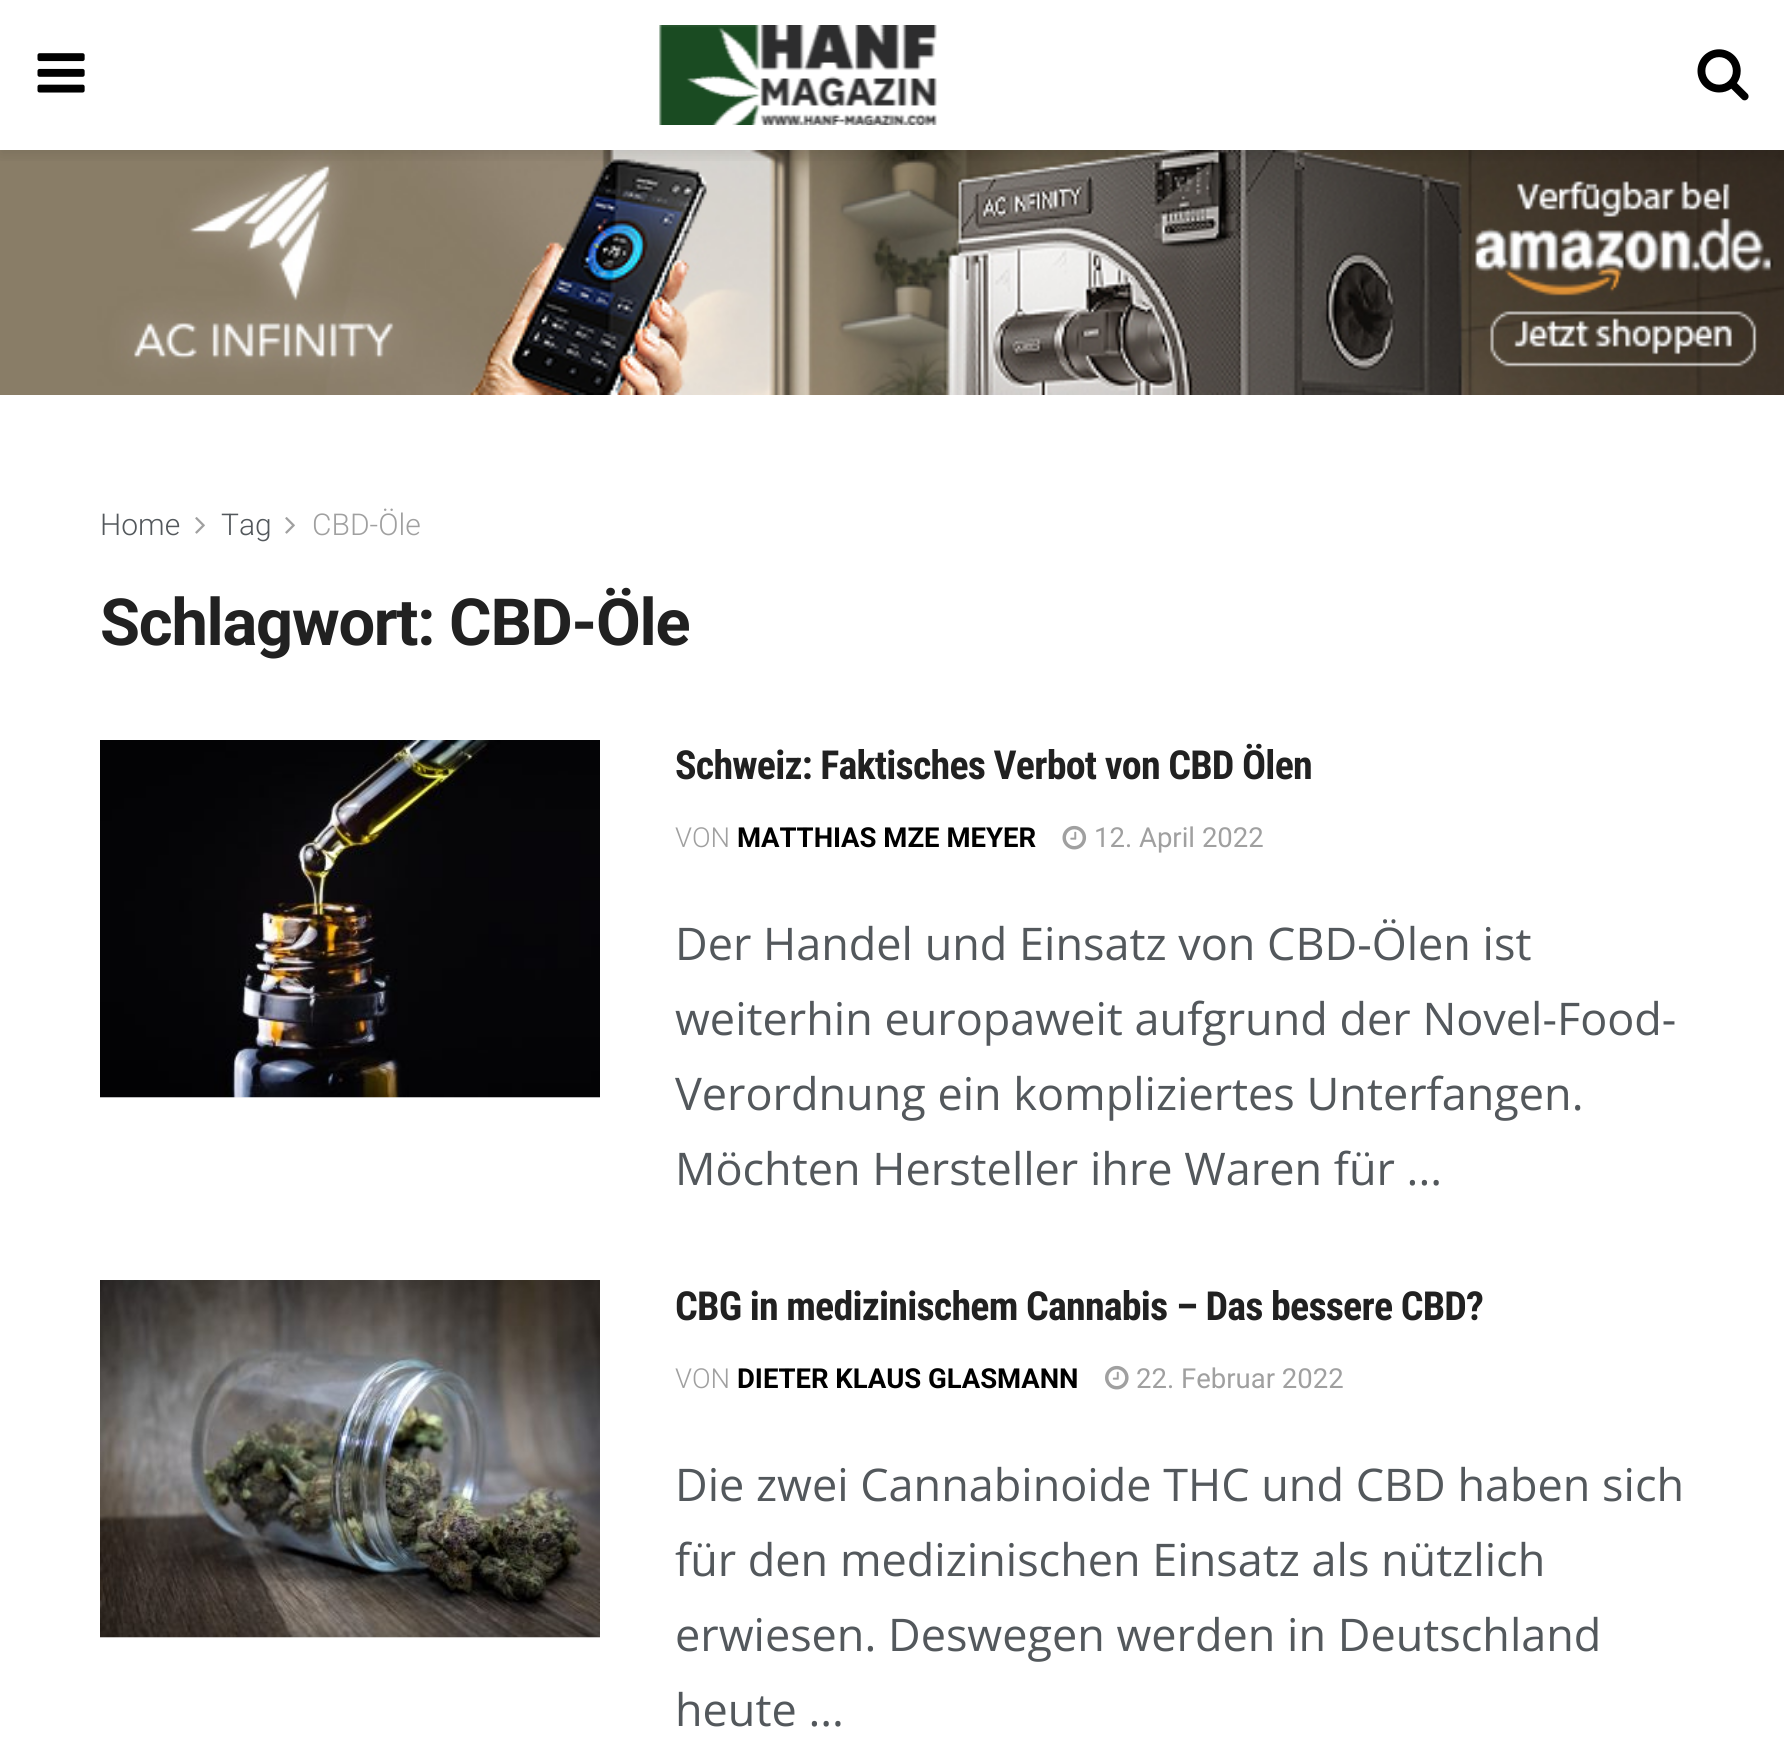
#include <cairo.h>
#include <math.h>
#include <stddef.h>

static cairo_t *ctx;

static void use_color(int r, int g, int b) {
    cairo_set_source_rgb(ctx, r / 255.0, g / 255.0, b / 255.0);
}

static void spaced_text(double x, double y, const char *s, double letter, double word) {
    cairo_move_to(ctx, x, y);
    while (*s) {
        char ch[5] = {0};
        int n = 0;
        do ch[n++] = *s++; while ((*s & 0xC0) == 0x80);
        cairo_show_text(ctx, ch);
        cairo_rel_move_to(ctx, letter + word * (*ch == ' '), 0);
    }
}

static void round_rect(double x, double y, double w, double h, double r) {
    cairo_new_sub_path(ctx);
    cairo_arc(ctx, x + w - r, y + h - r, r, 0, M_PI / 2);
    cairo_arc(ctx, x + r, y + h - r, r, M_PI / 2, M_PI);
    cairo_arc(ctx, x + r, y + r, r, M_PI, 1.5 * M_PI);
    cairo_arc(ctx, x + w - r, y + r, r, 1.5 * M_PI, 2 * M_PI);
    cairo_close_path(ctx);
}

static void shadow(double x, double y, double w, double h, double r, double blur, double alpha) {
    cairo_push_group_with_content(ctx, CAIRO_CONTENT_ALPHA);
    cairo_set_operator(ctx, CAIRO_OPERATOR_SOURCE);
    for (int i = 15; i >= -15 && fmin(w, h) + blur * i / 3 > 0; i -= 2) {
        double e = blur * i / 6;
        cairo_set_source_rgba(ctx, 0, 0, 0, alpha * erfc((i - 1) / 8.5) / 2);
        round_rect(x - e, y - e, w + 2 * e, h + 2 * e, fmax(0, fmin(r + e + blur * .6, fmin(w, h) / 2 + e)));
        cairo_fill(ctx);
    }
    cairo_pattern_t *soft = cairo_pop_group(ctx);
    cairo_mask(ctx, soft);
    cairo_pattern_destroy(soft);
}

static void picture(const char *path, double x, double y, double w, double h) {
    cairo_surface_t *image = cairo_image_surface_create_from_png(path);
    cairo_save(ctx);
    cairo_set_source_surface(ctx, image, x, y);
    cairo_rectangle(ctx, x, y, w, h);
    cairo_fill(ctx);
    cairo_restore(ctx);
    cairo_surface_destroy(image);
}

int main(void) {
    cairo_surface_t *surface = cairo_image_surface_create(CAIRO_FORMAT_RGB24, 1784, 1737);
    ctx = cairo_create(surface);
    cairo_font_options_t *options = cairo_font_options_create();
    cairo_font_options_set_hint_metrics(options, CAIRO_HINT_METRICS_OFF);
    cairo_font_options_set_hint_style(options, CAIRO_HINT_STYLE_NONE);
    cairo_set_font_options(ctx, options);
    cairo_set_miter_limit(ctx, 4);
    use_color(255, 255, 255);
    cairo_paint(ctx);
    picture("img4.png", 0, 150, 1784, 245);
    cairo_save(ctx);
    cairo_rectangle(ctx, 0, 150, 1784, 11);
    cairo_clip(ctx);
    use_color(0, 0, 0);
    shadow(0, 5, 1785, 150, 0, 7.5, 0.1);
    cairo_restore(ctx);
    picture("img1.png", 37, 53, 48, 40);
    picture("img2.png", 659, 25, 278, 100);
    picture("img3.png", 1697, 49, 52, 52);
    cairo_select_font_face(ctx, "Roboto Light", CAIRO_FONT_SLANT_NORMAL, CAIRO_FONT_WEIGHT_NORMAL);
    cairo_set_font_size(ctx, 30);
    use_color(83, 88, 92);
    cairo_move_to(ctx, 100, 535);
    cairo_show_text(ctx, "Home");
    picture("img5.png", 195, 517, 10, 17);
    cairo_move_to(ctx, 221, 535);
    cairo_show_text(ctx, "Tag");
    picture("img5.png", 285, 517, 10, 17);
    use_color(160, 160, 160);
    cairo_move_to(ctx, 312, 535);
    cairo_show_text(ctx, "CBD-Öle");
    cairo_select_font_face(ctx, "Roboto", CAIRO_FONT_SLANT_NORMAL, CAIRO_FONT_WEIGHT_BOLD);
    cairo_set_font_size(ctx, 65);
    use_color(33, 33, 33);
    spaced_text(100, 645, "Schlagwort: CBD-Öle", -1.25, 0);
    use_color(247, 247, 247);
    cairo_rectangle(ctx, 100, 1097, 500, 1);
    cairo_fill(ctx);
    picture("img6.png", 100, 740, 500, 358);
    cairo_select_font_face(ctx, "Roboto Condensed", CAIRO_FONT_SLANT_NORMAL, CAIRO_FONT_WEIGHT_BOLD);
    cairo_set_font_size(ctx, 40);
    use_color(33, 33, 33);
    spaced_text(675, 779, "Schweiz: Faktisches Verbot von CBD Ölen", -0.8, 0);
    cairo_select_font_face(ctx, "Roboto Light", CAIRO_FONT_SLANT_NORMAL, CAIRO_FONT_WEIGHT_NORMAL);
    cairo_set_font_size(ctx, 27.5);
    use_color(160, 160, 160);
    cairo_move_to(ctx, 675, 847);
    cairo_show_text(ctx, "VON");
    cairo_select_font_face(ctx, "Roboto", CAIRO_FONT_SLANT_NORMAL, CAIRO_FONT_WEIGHT_BOLD);
    use_color(0, 0, 0);
    cairo_move_to(ctx, 737, 847);
    cairo_show_text(ctx, "MATTHIAS MZE MEYER");
    picture("img7.png", 1062, 825, 25, 25);
    cairo_select_font_face(ctx, "Roboto", CAIRO_FONT_SLANT_NORMAL, CAIRO_FONT_WEIGHT_NORMAL);
    use_color(160, 160, 160);
    cairo_move_to(ctx, 1094, 847);
    cairo_show_text(ctx, "12. April 2022");
    cairo_select_font_face(ctx, "Open Sans", CAIRO_FONT_SLANT_NORMAL, CAIRO_FONT_WEIGHT_NORMAL);
    cairo_set_font_size(ctx, 45);
    use_color(83, 88, 92);
    cairo_move_to(ctx, 675, 960);
    cairo_show_text(ctx, "Der Handel und Einsatz von CBD-Ölen ist");
    cairo_move_to(ctx, 675, 1035);
    cairo_show_text(ctx, "weiterhin europaweit aufgrund der Novel-Food-");
    cairo_move_to(ctx, 675, 1110);
    cairo_show_text(ctx, "Verordnung ein kompliziertes Unterfangen.");
    cairo_move_to(ctx, 675, 1185);
    cairo_show_text(ctx, "Möchten Hersteller ihre Waren für ...");
    use_color(247, 247, 247);
    cairo_rectangle(ctx, 100, 1637, 500, 1);
    cairo_fill(ctx);
    picture("img8.png", 100, 1280, 500, 358);
    cairo_select_font_face(ctx, "Roboto Condensed", CAIRO_FONT_SLANT_NORMAL, CAIRO_FONT_WEIGHT_BOLD);
    cairo_set_font_size(ctx, 40);
    use_color(33, 33, 33);
    spaced_text(675, 1320, "CBG in medizinischem Cannabis – Das bessere CBD?", -0.8, 0);
    cairo_select_font_face(ctx, "Roboto Light", CAIRO_FONT_SLANT_NORMAL, CAIRO_FONT_WEIGHT_NORMAL);
    cairo_set_font_size(ctx, 27.5);
    use_color(160, 160, 160);
    cairo_move_to(ctx, 675, 1388);
    cairo_show_text(ctx, "VON");
    cairo_select_font_face(ctx, "Roboto", CAIRO_FONT_SLANT_NORMAL, CAIRO_FONT_WEIGHT_BOLD);
    use_color(0, 0, 0);
    cairo_move_to(ctx, 737, 1388);
    cairo_show_text(ctx, "DIETER KLAUS GLASMANN");
    picture("img9.png", 1105, 1365, 24, 25);
    cairo_select_font_face(ctx, "Roboto", CAIRO_FONT_SLANT_NORMAL, CAIRO_FONT_WEIGHT_NORMAL);
    use_color(160, 160, 160);
    cairo_move_to(ctx, 1136, 1388);
    cairo_show_text(ctx, "22. Februar 2022");
    cairo_select_font_face(ctx, "Open Sans", CAIRO_FONT_SLANT_NORMAL, CAIRO_FONT_WEIGHT_NORMAL);
    cairo_set_font_size(ctx, 45);
    use_color(83, 88, 92);
    cairo_move_to(ctx, 675, 1501);
    cairo_show_text(ctx, "Die zwei Cannabinoide THC und CBD haben sich");
    cairo_move_to(ctx, 675, 1576);
    cairo_show_text(ctx, "für den medizinischen Einsatz als nützlich");
    cairo_move_to(ctx, 675, 1651);
    cairo_show_text(ctx, "erwiesen. Deswegen werden in Deutschland");
    cairo_move_to(ctx, 675, 1726);
    cairo_show_text(ctx, "heute ...");
    cairo_surface_write_to_png(surface, "result.png");
    cairo_font_options_destroy(options);
    cairo_destroy(ctx);
    cairo_surface_destroy(surface);
    return 0;
}
